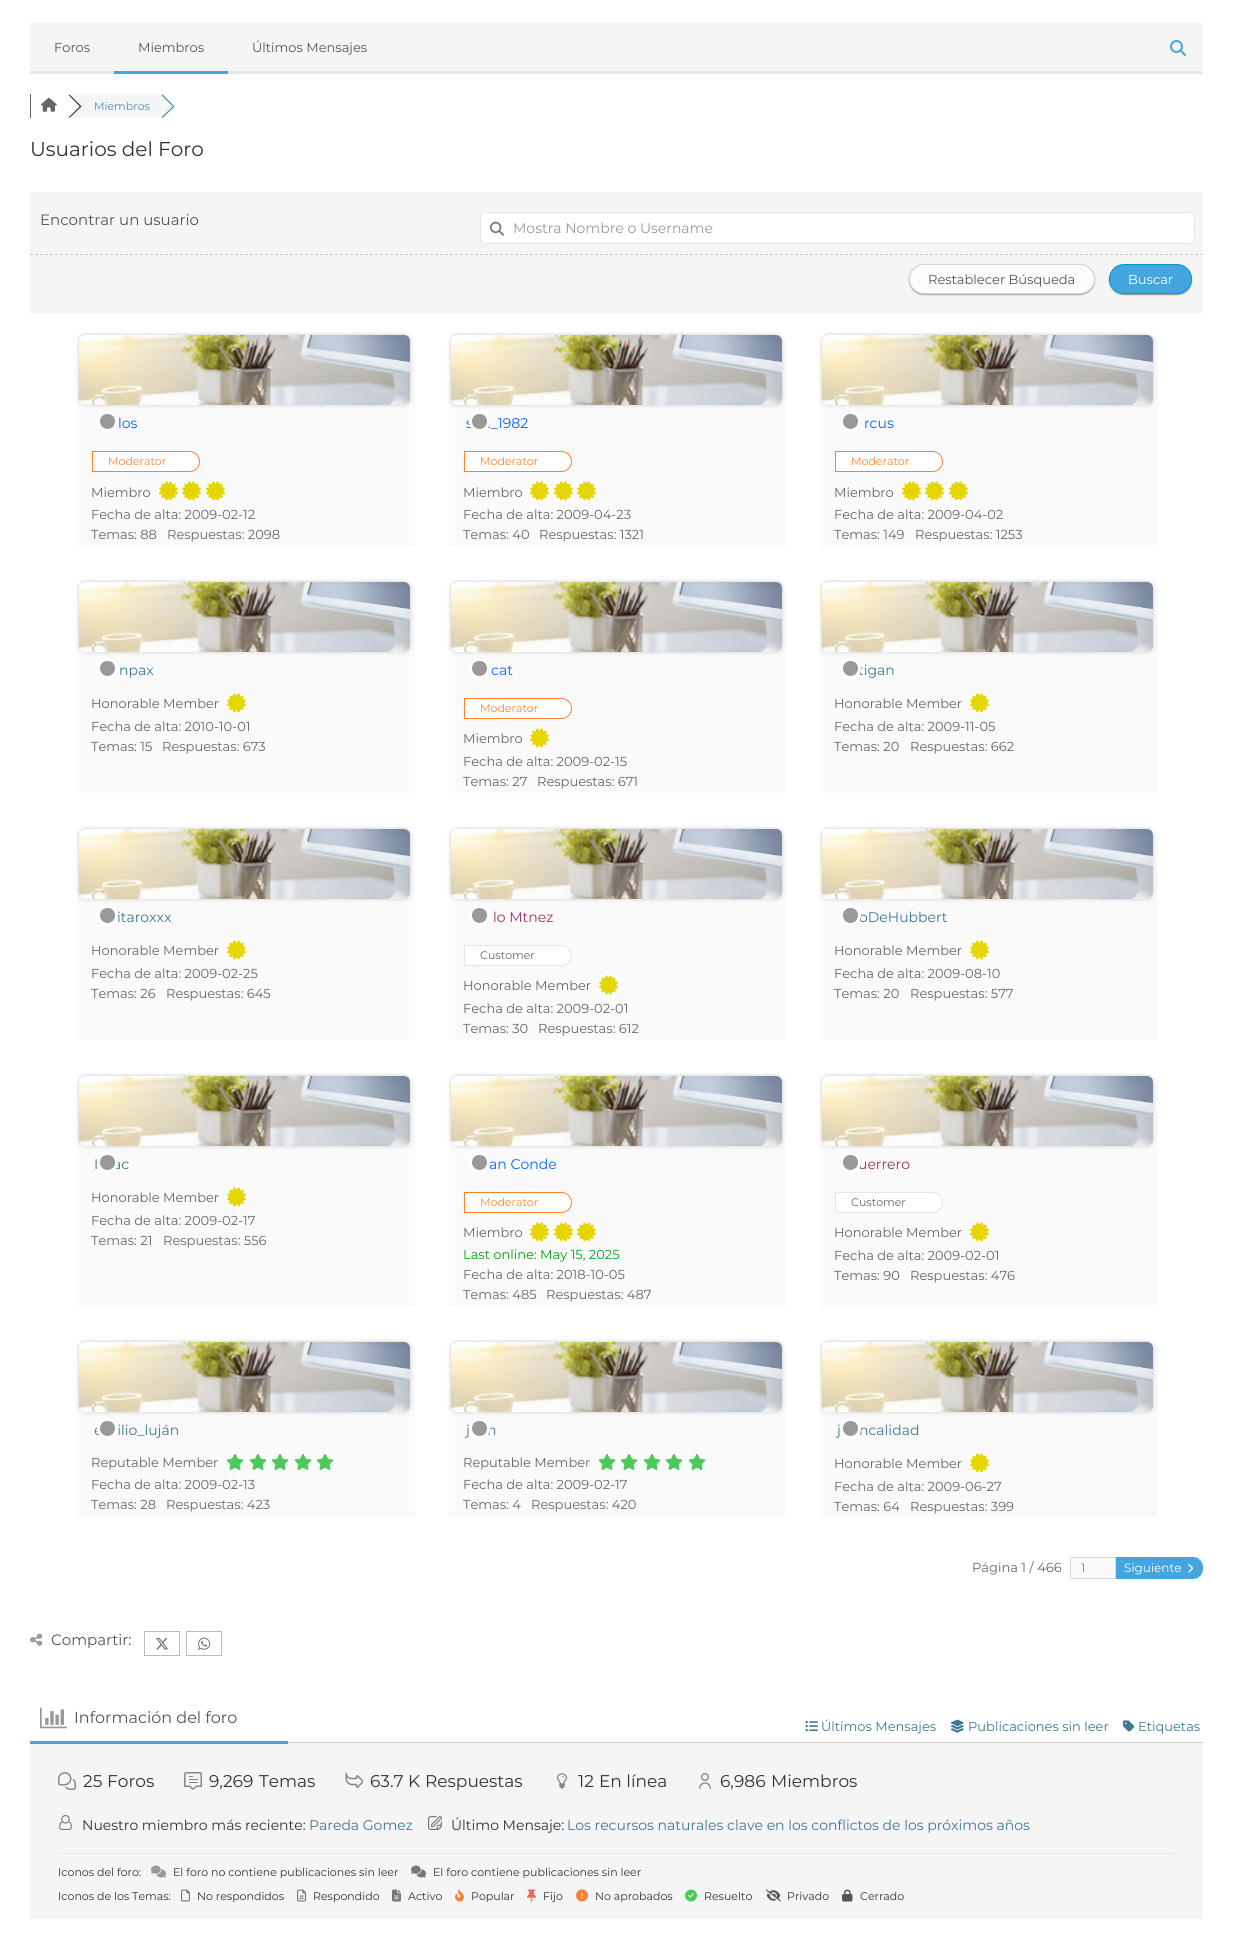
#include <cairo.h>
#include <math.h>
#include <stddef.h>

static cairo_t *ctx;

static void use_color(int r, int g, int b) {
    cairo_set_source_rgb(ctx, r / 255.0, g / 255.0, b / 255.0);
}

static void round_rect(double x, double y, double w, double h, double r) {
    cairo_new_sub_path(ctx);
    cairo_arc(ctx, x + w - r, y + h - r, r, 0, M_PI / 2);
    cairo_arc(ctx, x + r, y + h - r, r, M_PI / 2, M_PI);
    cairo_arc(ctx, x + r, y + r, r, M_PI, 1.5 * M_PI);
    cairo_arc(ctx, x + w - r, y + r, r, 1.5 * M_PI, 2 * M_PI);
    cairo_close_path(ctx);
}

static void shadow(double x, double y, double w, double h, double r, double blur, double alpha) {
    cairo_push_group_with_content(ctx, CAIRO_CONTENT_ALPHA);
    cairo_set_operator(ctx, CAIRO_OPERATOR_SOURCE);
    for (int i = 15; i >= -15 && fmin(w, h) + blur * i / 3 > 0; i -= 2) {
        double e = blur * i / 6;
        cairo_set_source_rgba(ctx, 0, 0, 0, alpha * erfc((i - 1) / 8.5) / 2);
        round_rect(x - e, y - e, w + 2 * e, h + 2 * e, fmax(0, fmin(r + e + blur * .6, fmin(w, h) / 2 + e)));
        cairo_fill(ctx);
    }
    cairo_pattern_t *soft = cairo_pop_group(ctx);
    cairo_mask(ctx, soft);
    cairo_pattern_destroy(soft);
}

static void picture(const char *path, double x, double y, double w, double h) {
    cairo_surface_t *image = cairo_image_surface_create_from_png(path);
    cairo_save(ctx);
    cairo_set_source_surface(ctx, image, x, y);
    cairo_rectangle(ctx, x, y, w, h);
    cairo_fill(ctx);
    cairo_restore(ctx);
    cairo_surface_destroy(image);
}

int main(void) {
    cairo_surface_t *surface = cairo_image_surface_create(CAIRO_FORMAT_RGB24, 1233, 1946);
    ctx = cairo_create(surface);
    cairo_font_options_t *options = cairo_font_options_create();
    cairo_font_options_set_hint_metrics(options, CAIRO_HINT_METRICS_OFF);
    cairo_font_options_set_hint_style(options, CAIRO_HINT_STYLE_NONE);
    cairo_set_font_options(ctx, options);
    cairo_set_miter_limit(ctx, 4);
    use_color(255, 255, 255);
    cairo_paint(ctx);
    use_color(245, 245, 245);
    cairo_rectangle(ctx, 30, 23, 1173, 48);
    cairo_fill(ctx);
    use_color(230, 230, 230);
    cairo_rectangle(ctx, 30, 71, 1173, 3);
    cairo_fill(ctx);
    cairo_select_font_face(ctx, "Montserrat", CAIRO_FONT_SLANT_NORMAL, CAIRO_FONT_WEIGHT_NORMAL);
    cairo_set_font_size(ctx, 13);
    use_color(85, 85, 85);
    cairo_move_to(ctx, 54, 52);
    cairo_show_text(ctx, "Foros");
    use_color(67, 166, 223);
    cairo_rectangle(ctx, 114, 71, 114, 3);
    cairo_fill(ctx);
    use_color(85, 85, 85);
    cairo_move_to(ctx, 138, 52);
    cairo_show_text(ctx, "Miembros");
    cairo_move_to(ctx, 252, 52);
    cairo_show_text(ctx, "Últimos Mensajes");
    picture("img1.png", 1170, 40, 16, 16);
    use_color(102, 102, 102);
    cairo_rectangle(ctx, 30, 94, 1, 24);
    cairo_fill(ctx);
    picture("img2.png", 41, 97, 16, 15);
    use_color(245, 245, 245);
    cairo_rectangle(ctx, 72, 94, 93, 24);
    cairo_fill(ctx);
    use_color(51, 51, 51);
    cairo_new_path(ctx);
    cairo_move_to(ctx, 69.5, 94.5);
    cairo_line_to(ctx, 68.5, 95.5);
    cairo_line_to(ctx, 79.5, 106.5);
    cairo_line_to(ctx, 68.5, 117);
    cairo_line_to(ctx, 69.5, 118);
    cairo_line_to(ctx, 81.5, 106.5);
    cairo_close_path(ctx);
    cairo_fill(ctx);
    use_color(255, 255, 255);
    cairo_new_path(ctx);
    cairo_move_to(ctx, 68, 94.5);
    cairo_line_to(ctx, 79.5, 106.5);
    cairo_line_to(ctx, 68, 118);
    cairo_line_to(ctx, 56, 106.5);
    cairo_close_path(ctx);
    cairo_fill(ctx);
    cairo_set_font_size(ctx, 11);
    use_color(74, 142, 179);
    cairo_move_to(ctx, 94, 110);
    cairo_show_text(ctx, "Miembros");
    cairo_new_path(ctx);
    cairo_move_to(ctx, 162.5, 94.5);
    cairo_line_to(ctx, 161.5, 95.5);
    cairo_line_to(ctx, 172.5, 106.5);
    cairo_line_to(ctx, 161.5, 117);
    cairo_line_to(ctx, 162.5, 118);
    cairo_line_to(ctx, 174.5, 106.5);
    cairo_close_path(ctx);
    cairo_fill(ctx);
    use_color(245, 245, 245);
    cairo_new_path(ctx);
    cairo_move_to(ctx, 160.5, 94.5);
    cairo_line_to(ctx, 172.5, 106.5);
    cairo_line_to(ctx, 160.5, 118);
    cairo_line_to(ctx, 149, 106.5);
    cairo_close_path(ctx);
    cairo_fill(ctx);
    cairo_set_font_size(ctx, 20);
    use_color(51, 51, 51);
    cairo_move_to(ctx, 30, 156);
    cairo_show_text(ctx, "Usuarios del Foro");
    use_color(245, 245, 245);
    cairo_rectangle(ctx, 30, 192, 1173, 121);
    cairo_fill(ctx);
    cairo_new_path(ctx);
    cairo_move_to(ctx, 30, 254.5);
    cairo_line_to(ctx, 1203, 254.5);
    use_color(204, 204, 204);
    cairo_set_line_width(ctx, 1);
    cairo_set_dash(ctx, (double[]){3, 2}, 2, 0);
    cairo_stroke(ctx);
    cairo_set_font_size(ctx, 15);
    use_color(85, 85, 85);
    cairo_move_to(ctx, 40, 225);
    cairo_show_text(ctx, "Encontrar un usuario");
    use_color(255, 255, 255);
    round_rect(480.5, 212.5, 714, 31, 5.5);
    cairo_fill_preserve(ctx);
    use_color(230, 230, 230);
    cairo_set_dash(ctx, NULL, 0, 0);
    cairo_stroke(ctx);
    picture("img3.png", 490, 221, 14, 15);
    cairo_set_font_size(ctx, 14);
    use_color(153, 153, 153);
    cairo_move_to(ctx, 513, 233);
    cairo_show_text(ctx, "Mostra Nombre o Username");
    use_color(171, 171, 171);
    shadow(909, 265, 186, 30, 15, 0.5, 1);
    use_color(252, 252, 252);
    round_rect(909.5, 264.5, 185, 29, 14.5);
    cairo_fill_preserve(ctx);
    use_color(212, 212, 212);
    cairo_stroke(ctx);
    cairo_set_font_size(ctx, 13);
    use_color(85, 85, 85);
    cairo_move_to(ctx, 928, 284);
    cairo_show_text(ctx, "Restablecer Búsqueda");
    use_color(153, 153, 153);
    shadow(1109, 265, 83, 30, 15, 0.5, 1);
    use_color(67, 166, 223);
    round_rect(1109.5, 264.5, 82, 29, 14.5);
    cairo_fill_preserve(ctx);
    use_color(0, 153, 204);
    cairo_stroke(ctx);
    use_color(255, 255, 255);
    cairo_move_to(ctx, 1128, 284);
    cairo_show_text(ctx, "Buscar");
    use_color(250, 250, 250);
    cairo_new_path(ctx);
    cairo_move_to(ctx, 87, 333);
    cairo_line_to(ctx, 405, 333);
    cairo_curve_to(ctx, 410.5, 333, 415, 337.5, 415, 343);
    cairo_line_to(ctx, 415, 544);
    cairo_curve_to(ctx, 415, 545, 414, 546, 413, 546);
    cairo_line_to(ctx, 79, 546);
    cairo_curve_to(ctx, 78, 546, 77, 545, 77, 544);
    cairo_line_to(ctx, 77, 343);
    cairo_curve_to(ctx, 77, 337.5, 81.5, 333, 87, 333);
    cairo_close_path(ctx);
    cairo_fill(ctx);
    use_color(204, 204, 204);
    shadow(79, 335, 331, 70, 6, 2, 1);
    picture("img4.png", 79, 335, 331, 70);
    cairo_arc(ctx, 107.5, 421.5, 9, 0, 2 * M_PI);
    use_color(255, 255, 255);
    cairo_set_line_width(ctx, 3);
    cairo_stroke(ctx);
    use_color(153, 153, 153);
    cairo_new_path(ctx);
    cairo_move_to(ctx, 107.5, 429);
    cairo_curve_to(ctx, 117.5, 428.5, 117.5, 414, 107.5, 414);
    cairo_curve_to(ctx, 97.5, 414, 97.5, 428.5, 107.5, 429);
    cairo_close_path(ctx);
    cairo_fill(ctx);
    cairo_set_font_size(ctx, 14);
    use_color(0, 102, 255);
    cairo_move_to(ctx, 118, 428);
    cairo_show_text(ctx, "los");
    cairo_new_path(ctx);
    cairo_move_to(ctx, 146, 445.5);
    cairo_curve_to(ctx, 176, 445.5, 200.5, 453, 200.5, 462.5);
    cairo_curve_to(ctx, 200.5, 472, 176, 479.5, 146, 479.5);
    cairo_curve_to(ctx, 116, 479.5, 91.5, 472, 91.5, 462.5);
    cairo_curve_to(ctx, 91.5, 453, 116, 445.5, 146, 445.5);
    cairo_close_path(ctx);
    use_color(245, 245, 245);
    cairo_set_line_width(ctx, 1);
    cairo_set_dash(ctx, (double[]){3, 2}, 2, 0);
    cairo_stroke(ctx);
    use_color(255, 255, 255);
    cairo_new_path(ctx);
    cairo_move_to(ctx, 92.5, 451.5);
    cairo_line_to(ctx, 189.5, 451.5);
    cairo_curve_to(ctx, 195, 451.5, 199.5, 456, 199.5, 461.5);
    cairo_curve_to(ctx, 199.5, 467, 195, 471.5, 189.5, 471.5);
    cairo_line_to(ctx, 92.5, 471.5);
    cairo_close_path(ctx);
    cairo_fill_preserve(ctx);
    use_color(255, 129, 45);
    cairo_set_dash(ctx, NULL, 0, 0);
    cairo_stroke(ctx);
    cairo_set_font_size(ctx, 11);
    cairo_move_to(ctx, 108, 465);
    cairo_show_text(ctx, "Moderator");
    cairo_set_font_size(ctx, 13);
    use_color(102, 102, 102);
    cairo_move_to(ctx, 91, 497);
    cairo_show_text(ctx, "Miembro");
    picture("img5.png", 159, 481, 19, 20);
    picture("img5.png", 182, 481, 19, 20);
    picture("img5.png", 206, 481, 19, 20);
    cairo_move_to(ctx, 91, 519);
    cairo_show_text(ctx, "Fecha de alta: 2009-02-12");
    cairo_move_to(ctx, 91, 539);
    cairo_show_text(ctx, "Temas: 88");
    cairo_move_to(ctx, 167, 539);
    cairo_show_text(ctx, "Respuestas: 2098");
    use_color(250, 250, 250);
    cairo_new_path(ctx);
    cairo_move_to(ctx, 459, 333);
    cairo_line_to(ctx, 776, 333);
    cairo_curve_to(ctx, 781.5, 333, 786, 337.5, 786, 343);
    cairo_line_to(ctx, 786, 544);
    cairo_curve_to(ctx, 786, 545, 785, 546, 784, 546);
    cairo_line_to(ctx, 451, 546);
    cairo_curve_to(ctx, 450, 546, 449, 545, 449, 544);
    cairo_line_to(ctx, 449, 343);
    cairo_curve_to(ctx, 449, 337.5, 453.5, 333, 459, 333);
    cairo_close_path(ctx);
    cairo_fill(ctx);
    use_color(204, 204, 204);
    shadow(451, 335, 331, 70, 6, 2, 1);
    picture("img4.png", 451, 335, 331, 70);
    cairo_set_font_size(ctx, 14);
    use_color(0, 102, 255);
    cairo_move_to(ctx, 466, 428);
    cairo_show_text(ctx, "s");
    cairo_move_to(ctx, 487, 428);
    cairo_show_text(ctx, "i_1982");
    cairo_new_path(ctx);
    cairo_arc(ctx, 479.5, 421.5, 9, 0, 2 * M_PI);
    use_color(255, 255, 255);
    cairo_set_line_width(ctx, 3);
    cairo_stroke(ctx);
    use_color(153, 153, 153);
    cairo_new_path(ctx);
    cairo_move_to(ctx, 479.5, 429);
    cairo_curve_to(ctx, 489.5, 428.5, 489.5, 414, 479.5, 414);
    cairo_curve_to(ctx, 469.5, 414, 469.5, 428.5, 479.5, 429);
    cairo_close_path(ctx);
    cairo_fill(ctx);
    cairo_new_path(ctx);
    cairo_move_to(ctx, 518, 445.5);
    cairo_curve_to(ctx, 548, 445.5, 572.5, 453, 572.5, 462.5);
    cairo_curve_to(ctx, 572.5, 472, 548, 479.5, 518, 479.5);
    cairo_curve_to(ctx, 488, 479.5, 463.5, 472, 463.5, 462.5);
    cairo_curve_to(ctx, 463.5, 453, 488, 445.5, 518, 445.5);
    cairo_close_path(ctx);
    use_color(245, 245, 245);
    cairo_set_line_width(ctx, 1);
    cairo_set_dash(ctx, (double[]){3, 2}, 2, 0);
    cairo_stroke(ctx);
    use_color(255, 255, 255);
    cairo_new_path(ctx);
    cairo_move_to(ctx, 464.5, 451.5);
    cairo_line_to(ctx, 561.5, 451.5);
    cairo_curve_to(ctx, 567, 451.5, 571.5, 456, 571.5, 461.5);
    cairo_curve_to(ctx, 571.5, 467, 567, 471.5, 561.5, 471.5);
    cairo_line_to(ctx, 464.5, 471.5);
    cairo_close_path(ctx);
    cairo_fill_preserve(ctx);
    use_color(255, 129, 45);
    cairo_set_dash(ctx, NULL, 0, 0);
    cairo_stroke(ctx);
    cairo_set_font_size(ctx, 11);
    cairo_move_to(ctx, 480, 465);
    cairo_show_text(ctx, "Moderator");
    cairo_set_font_size(ctx, 13);
    use_color(102, 102, 102);
    cairo_move_to(ctx, 463, 497);
    cairo_show_text(ctx, "Miembro");
    picture("img5.png", 530, 481, 19, 20);
    picture("img5.png", 554, 481, 19, 20);
    picture("img5.png", 577, 481, 19, 20);
    cairo_move_to(ctx, 463, 519);
    cairo_show_text(ctx, "Fecha de alta: 2009-04-23");
    cairo_move_to(ctx, 463, 539);
    cairo_show_text(ctx, "Temas: 40");
    cairo_move_to(ctx, 539, 539);
    cairo_show_text(ctx, "Respuestas: 1321");
    use_color(250, 250, 250);
    cairo_new_path(ctx);
    cairo_move_to(ctx, 830, 333);
    cairo_line_to(ctx, 1148, 333);
    cairo_curve_to(ctx, 1153.5, 333, 1158, 337.5, 1158, 343);
    cairo_line_to(ctx, 1158, 544);
    cairo_curve_to(ctx, 1158, 545, 1157, 546, 1156, 546);
    cairo_line_to(ctx, 822, 546);
    cairo_curve_to(ctx, 821, 546, 820, 545, 820, 544);
    cairo_line_to(ctx, 820, 343);
    cairo_curve_to(ctx, 820, 337.5, 824.5, 333, 830, 333);
    cairo_close_path(ctx);
    cairo_fill(ctx);
    use_color(204, 204, 204);
    shadow(822, 335, 331, 70, 6, 2, 1);
    picture("img4.png", 822, 335, 331, 70);
    cairo_arc(ctx, 850.5, 421.5, 9, 0, 2 * M_PI);
    use_color(255, 255, 255);
    cairo_set_line_width(ctx, 3);
    cairo_stroke(ctx);
    use_color(153, 153, 153);
    cairo_new_path(ctx);
    cairo_move_to(ctx, 850.5, 429);
    cairo_curve_to(ctx, 860.5, 428.5, 860.5, 414, 850.5, 414);
    cairo_curve_to(ctx, 840.5, 414, 840.5, 428.5, 850.5, 429);
    cairo_close_path(ctx);
    cairo_fill(ctx);
    cairo_set_font_size(ctx, 14);
    use_color(0, 102, 255);
    cairo_move_to(ctx, 864, 428);
    cairo_show_text(ctx, "rcus");
    cairo_new_path(ctx);
    cairo_move_to(ctx, 889, 445.5);
    cairo_curve_to(ctx, 919, 445.5, 943.5, 453, 943.5, 462.5);
    cairo_curve_to(ctx, 943.5, 472, 919, 479.5, 889, 479.5);
    cairo_curve_to(ctx, 859, 479.5, 834.5, 472, 834.5, 462.5);
    cairo_curve_to(ctx, 834.5, 453, 859, 445.5, 889, 445.5);
    cairo_close_path(ctx);
    use_color(245, 245, 245);
    cairo_set_line_width(ctx, 1);
    cairo_set_dash(ctx, (double[]){3, 2}, 2, 0);
    cairo_stroke(ctx);
    use_color(255, 255, 255);
    cairo_new_path(ctx);
    cairo_move_to(ctx, 835.5, 451.5);
    cairo_line_to(ctx, 932.5, 451.5);
    cairo_curve_to(ctx, 938, 451.5, 942.5, 456, 942.5, 461.5);
    cairo_curve_to(ctx, 942.5, 467, 938, 471.5, 932.5, 471.5);
    cairo_line_to(ctx, 835.5, 471.5);
    cairo_close_path(ctx);
    cairo_fill_preserve(ctx);
    use_color(255, 129, 45);
    cairo_set_dash(ctx, NULL, 0, 0);
    cairo_stroke(ctx);
    cairo_set_font_size(ctx, 11);
    cairo_move_to(ctx, 851, 465);
    cairo_show_text(ctx, "Moderator");
    cairo_set_font_size(ctx, 13);
    use_color(102, 102, 102);
    cairo_move_to(ctx, 834, 497);
    cairo_show_text(ctx, "Miembro");
    picture("img5.png", 902, 481, 19, 20);
    picture("img5.png", 925, 481, 19, 20);
    picture("img5.png", 949, 481, 19, 20);
    cairo_move_to(ctx, 834, 519);
    cairo_show_text(ctx, "Fecha de alta: 2009-04-02");
    cairo_move_to(ctx, 834, 539);
    cairo_show_text(ctx, "Temas: 149");
    cairo_move_to(ctx, 915, 539);
    cairo_show_text(ctx, "Respuestas: 1253");
    use_color(250, 250, 250);
    cairo_new_path(ctx);
    cairo_move_to(ctx, 87, 580);
    cairo_line_to(ctx, 405, 580);
    cairo_curve_to(ctx, 410.5, 580, 415, 584.5, 415, 590);
    cairo_line_to(ctx, 415, 791);
    cairo_curve_to(ctx, 415, 792, 414, 793, 413, 793);
    cairo_line_to(ctx, 79, 793);
    cairo_curve_to(ctx, 78, 793, 77, 792, 77, 791);
    cairo_line_to(ctx, 77, 590);
    cairo_curve_to(ctx, 77, 584.5, 81.5, 580, 87, 580);
    cairo_close_path(ctx);
    cairo_fill(ctx);
    use_color(204, 204, 204);
    shadow(79, 582, 331, 70, 6, 2, 1);
    picture("img4.png", 79, 582, 331, 70);
    cairo_arc(ctx, 107.5, 668.5, 9, 0, 2 * M_PI);
    use_color(255, 255, 255);
    cairo_set_line_width(ctx, 3);
    cairo_stroke(ctx);
    use_color(153, 153, 153);
    cairo_new_path(ctx);
    cairo_move_to(ctx, 107.5, 676);
    cairo_curve_to(ctx, 117.5, 675.5, 117.5, 661, 107.5, 661);
    cairo_curve_to(ctx, 97.5, 661, 97.5, 675.5, 107.5, 676);
    cairo_close_path(ctx);
    cairo_fill(ctx);
    cairo_set_font_size(ctx, 14);
    use_color(63, 119, 150);
    cairo_move_to(ctx, 119, 675);
    cairo_show_text(ctx, "npax");
    cairo_set_font_size(ctx, 13);
    use_color(102, 102, 102);
    cairo_move_to(ctx, 91, 708);
    cairo_show_text(ctx, "Honorable Member");
    picture("img5.png", 227, 693, 19, 20);
    cairo_move_to(ctx, 91, 731);
    cairo_show_text(ctx, "Fecha de alta: 2010-10-01");
    cairo_move_to(ctx, 91, 751);
    cairo_show_text(ctx, "Temas: 15");
    cairo_move_to(ctx, 162, 751);
    cairo_show_text(ctx, "Respuestas: 673");
    use_color(250, 250, 250);
    cairo_new_path(ctx);
    cairo_move_to(ctx, 459, 580);
    cairo_line_to(ctx, 776, 580);
    cairo_curve_to(ctx, 781.5, 580, 786, 584.5, 786, 590);
    cairo_line_to(ctx, 786, 791);
    cairo_curve_to(ctx, 786, 792, 785, 793, 784, 793);
    cairo_line_to(ctx, 451, 793);
    cairo_curve_to(ctx, 450, 793, 449, 792, 449, 791);
    cairo_line_to(ctx, 449, 590);
    cairo_curve_to(ctx, 449, 584.5, 453.5, 580, 459, 580);
    cairo_close_path(ctx);
    cairo_fill(ctx);
    use_color(204, 204, 204);
    shadow(451, 582, 331, 70, 6, 2, 1);
    picture("img4.png", 451, 582, 331, 70);
    cairo_arc(ctx, 479.5, 668.5, 9, 0, 2 * M_PI);
    use_color(255, 255, 255);
    cairo_stroke(ctx);
    use_color(153, 153, 153);
    cairo_new_path(ctx);
    cairo_move_to(ctx, 479.5, 676);
    cairo_curve_to(ctx, 489.5, 675.5, 489.5, 661, 479.5, 661);
    cairo_curve_to(ctx, 469.5, 661, 469.5, 675.5, 479.5, 676);
    cairo_close_path(ctx);
    cairo_fill(ctx);
    cairo_set_font_size(ctx, 14);
    use_color(0, 102, 255);
    cairo_move_to(ctx, 491, 675);
    cairo_show_text(ctx, "cat");
    cairo_new_path(ctx);
    cairo_move_to(ctx, 518, 692.5);
    cairo_curve_to(ctx, 548, 692.5, 572.5, 700, 572.5, 709.5);
    cairo_curve_to(ctx, 572.5, 719, 548, 726.5, 518, 726.5);
    cairo_curve_to(ctx, 488, 726.5, 463.5, 719, 463.5, 709.5);
    cairo_curve_to(ctx, 463.5, 700, 488, 692.5, 518, 692.5);
    cairo_close_path(ctx);
    use_color(245, 245, 245);
    cairo_set_line_width(ctx, 1);
    cairo_set_dash(ctx, (double[]){3, 2}, 2, 0);
    cairo_stroke(ctx);
    use_color(255, 255, 255);
    cairo_new_path(ctx);
    cairo_move_to(ctx, 464.5, 698.5);
    cairo_line_to(ctx, 561.5, 698.5);
    cairo_curve_to(ctx, 567, 698.5, 571.5, 703, 571.5, 708.5);
    cairo_curve_to(ctx, 571.5, 714, 567, 718.5, 561.5, 718.5);
    cairo_line_to(ctx, 464.5, 718.5);
    cairo_close_path(ctx);
    cairo_fill_preserve(ctx);
    use_color(255, 129, 45);
    cairo_set_dash(ctx, NULL, 0, 0);
    cairo_stroke(ctx);
    cairo_set_font_size(ctx, 11);
    cairo_move_to(ctx, 480, 712);
    cairo_show_text(ctx, "Moderator");
    cairo_set_font_size(ctx, 13);
    use_color(102, 102, 102);
    cairo_move_to(ctx, 463, 743);
    cairo_show_text(ctx, "Miembro");
    picture("img5.png", 530, 728, 19, 20);
    cairo_move_to(ctx, 463, 766);
    cairo_show_text(ctx, "Fecha de alta: 2009-02-15");
    cairo_move_to(ctx, 463, 786);
    cairo_show_text(ctx, "Temas: 27");
    cairo_move_to(ctx, 537, 786);
    cairo_show_text(ctx, "Respuestas: 671");
    use_color(250, 250, 250);
    cairo_new_path(ctx);
    cairo_move_to(ctx, 830, 580);
    cairo_line_to(ctx, 1148, 580);
    cairo_curve_to(ctx, 1153.5, 580, 1158, 584.5, 1158, 590);
    cairo_line_to(ctx, 1158, 791);
    cairo_curve_to(ctx, 1158, 792, 1157, 793, 1156, 793);
    cairo_line_to(ctx, 822, 793);
    cairo_curve_to(ctx, 821, 793, 820, 792, 820, 791);
    cairo_line_to(ctx, 820, 590);
    cairo_curve_to(ctx, 820, 584.5, 824.5, 580, 830, 580);
    cairo_close_path(ctx);
    cairo_fill(ctx);
    use_color(204, 204, 204);
    shadow(822, 582, 331, 70, 6, 2, 1);
    picture("img4.png", 822, 582, 331, 70);
    cairo_set_font_size(ctx, 14);
    use_color(63, 119, 150);
    cairo_move_to(ctx, 858, 675);
    cairo_show_text(ctx, "tigan");
    cairo_new_path(ctx);
    cairo_arc(ctx, 850.5, 668.5, 9, 0, 2 * M_PI);
    use_color(255, 255, 255);
    cairo_set_line_width(ctx, 3);
    cairo_stroke(ctx);
    use_color(153, 153, 153);
    cairo_new_path(ctx);
    cairo_move_to(ctx, 850.5, 676);
    cairo_curve_to(ctx, 860.5, 675.5, 860.5, 661, 850.5, 661);
    cairo_curve_to(ctx, 840.5, 661, 840.5, 675.5, 850.5, 676);
    cairo_close_path(ctx);
    cairo_fill(ctx);
    cairo_set_font_size(ctx, 13);
    use_color(102, 102, 102);
    cairo_move_to(ctx, 834, 708);
    cairo_show_text(ctx, "Honorable Member");
    picture("img5.png", 970, 693, 19, 20);
    cairo_move_to(ctx, 834, 731);
    cairo_show_text(ctx, "Fecha de alta: 2009-11-05");
    cairo_move_to(ctx, 834, 751);
    cairo_show_text(ctx, "Temas: 20");
    cairo_move_to(ctx, 910, 751);
    cairo_show_text(ctx, "Respuestas: 662");
    use_color(250, 250, 250);
    cairo_new_path(ctx);
    cairo_move_to(ctx, 87, 827);
    cairo_line_to(ctx, 405, 827);
    cairo_curve_to(ctx, 410.5, 827, 415, 831.5, 415, 837);
    cairo_line_to(ctx, 415, 1038);
    cairo_curve_to(ctx, 415, 1039, 414, 1040, 413, 1040);
    cairo_line_to(ctx, 79, 1040);
    cairo_curve_to(ctx, 78, 1040, 77, 1039, 77, 1038);
    cairo_line_to(ctx, 77, 837);
    cairo_curve_to(ctx, 77, 831.5, 81.5, 827, 87, 827);
    cairo_close_path(ctx);
    cairo_fill(ctx);
    use_color(204, 204, 204);
    shadow(79, 829, 331, 70, 6, 2, 1);
    picture("img6.png", 79, 829, 331, 70);
    cairo_arc(ctx, 107.5, 915.5, 9, 0, 2 * M_PI);
    use_color(255, 255, 255);
    cairo_stroke(ctx);
    use_color(153, 153, 153);
    cairo_new_path(ctx);
    cairo_move_to(ctx, 107.5, 923);
    cairo_curve_to(ctx, 117.5, 922.5, 117.5, 908, 107.5, 908);
    cairo_curve_to(ctx, 97.5, 908, 97.5, 922.5, 107.5, 923);
    cairo_close_path(ctx);
    cairo_fill(ctx);
    cairo_set_font_size(ctx, 14);
    use_color(63, 119, 150);
    cairo_move_to(ctx, 117, 922);
    cairo_show_text(ctx, "itaroxxx");
    cairo_set_font_size(ctx, 13);
    use_color(102, 102, 102);
    cairo_move_to(ctx, 91, 955);
    cairo_show_text(ctx, "Honorable Member");
    picture("img5.png", 227, 940, 19, 20);
    cairo_move_to(ctx, 91, 978);
    cairo_show_text(ctx, "Fecha de alta: 2009-02-25");
    cairo_move_to(ctx, 91, 998);
    cairo_show_text(ctx, "Temas: 26");
    cairo_move_to(ctx, 166, 998);
    cairo_show_text(ctx, "Respuestas: 645");
    use_color(250, 250, 250);
    cairo_new_path(ctx);
    cairo_move_to(ctx, 459, 827);
    cairo_line_to(ctx, 776, 827);
    cairo_curve_to(ctx, 781.5, 827, 786, 831.5, 786, 837);
    cairo_line_to(ctx, 786, 1038);
    cairo_curve_to(ctx, 786, 1039, 785, 1040, 784, 1040);
    cairo_line_to(ctx, 451, 1040);
    cairo_curve_to(ctx, 450, 1040, 449, 1039, 449, 1038);
    cairo_line_to(ctx, 449, 837);
    cairo_curve_to(ctx, 449, 831.5, 453.5, 827, 459, 827);
    cairo_close_path(ctx);
    cairo_fill(ctx);
    use_color(204, 204, 204);
    shadow(451, 829, 331, 70, 6, 2, 1);
    picture("img4.png", 451, 829, 331, 70);
    cairo_arc(ctx, 479.5, 915.5, 9, 0, 2 * M_PI);
    use_color(255, 255, 255);
    cairo_stroke(ctx);
    use_color(153, 153, 153);
    cairo_new_path(ctx);
    cairo_move_to(ctx, 479.5, 923);
    cairo_curve_to(ctx, 489.5, 922.5, 489.5, 908, 479.5, 908);
    cairo_curve_to(ctx, 469.5, 908, 469.5, 922.5, 479.5, 923);
    cairo_close_path(ctx);
    cairo_fill(ctx);
    cairo_set_font_size(ctx, 14);
    use_color(153, 51, 102);
    cairo_move_to(ctx, 493, 922);
    cairo_show_text(ctx, "lo Mtnez");
    cairo_new_path(ctx);
    cairo_move_to(ctx, 518, 939.5);
    cairo_curve_to(ctx, 548, 939.5, 572.5, 947, 572.5, 956.5);
    cairo_curve_to(ctx, 572.5, 966, 548, 973.5, 518, 973.5);
    cairo_curve_to(ctx, 488, 973.5, 463.5, 966, 463.5, 956.5);
    cairo_curve_to(ctx, 463.5, 947, 488, 939.5, 518, 939.5);
    cairo_close_path(ctx);
    use_color(245, 245, 245);
    cairo_set_line_width(ctx, 1);
    cairo_set_dash(ctx, (double[]){3, 2}, 2, 0);
    cairo_stroke(ctx);
    use_color(255, 255, 255);
    cairo_new_path(ctx);
    cairo_move_to(ctx, 464.5, 945.5);
    cairo_line_to(ctx, 561.5, 945.5);
    cairo_curve_to(ctx, 567, 945.5, 571.5, 950, 571.5, 955.5);
    cairo_curve_to(ctx, 571.5, 961, 567, 965.5, 561.5, 965.5);
    cairo_line_to(ctx, 464.5, 965.5);
    cairo_close_path(ctx);
    cairo_fill_preserve(ctx);
    use_color(230, 230, 230);
    cairo_set_dash(ctx, NULL, 0, 0);
    cairo_stroke(ctx);
    cairo_set_font_size(ctx, 11);
    use_color(102, 102, 102);
    cairo_move_to(ctx, 480, 959);
    cairo_show_text(ctx, "Customer");
    cairo_set_font_size(ctx, 13);
    cairo_move_to(ctx, 463, 990);
    cairo_show_text(ctx, "Honorable Member");
    picture("img5.png", 599, 975, 19, 20);
    cairo_move_to(ctx, 463, 1013);
    cairo_show_text(ctx, "Fecha de alta: 2009-02-01");
    cairo_move_to(ctx, 463, 1033);
    cairo_show_text(ctx, "Temas: 30");
    cairo_move_to(ctx, 538, 1033);
    cairo_show_text(ctx, "Respuestas: 612");
    use_color(250, 250, 250);
    cairo_new_path(ctx);
    cairo_move_to(ctx, 830, 827);
    cairo_line_to(ctx, 1148, 827);
    cairo_curve_to(ctx, 1153.5, 827, 1158, 831.5, 1158, 837);
    cairo_line_to(ctx, 1158, 1038);
    cairo_curve_to(ctx, 1158, 1039, 1157, 1040, 1156, 1040);
    cairo_line_to(ctx, 822, 1040);
    cairo_curve_to(ctx, 821, 1040, 820, 1039, 820, 1038);
    cairo_line_to(ctx, 820, 837);
    cairo_curve_to(ctx, 820, 831.5, 824.5, 827, 830, 827);
    cairo_close_path(ctx);
    cairo_fill(ctx);
    use_color(204, 204, 204);
    shadow(822, 829, 331, 70, 6, 2, 1);
    picture("img4.png", 822, 829, 331, 70);
    cairo_set_font_size(ctx, 14);
    use_color(63, 119, 150);
    cairo_move_to(ctx, 859, 922);
    cairo_show_text(ctx, "oDeHubbert");
    cairo_new_path(ctx);
    cairo_arc(ctx, 850.5, 915.5, 9, 0, 2 * M_PI);
    use_color(255, 255, 255);
    cairo_set_line_width(ctx, 3);
    cairo_stroke(ctx);
    use_color(153, 153, 153);
    cairo_new_path(ctx);
    cairo_move_to(ctx, 850.5, 923);
    cairo_curve_to(ctx, 860.5, 922.5, 860.5, 908, 850.5, 908);
    cairo_curve_to(ctx, 840.5, 908, 840.5, 922.5, 850.5, 923);
    cairo_close_path(ctx);
    cairo_fill(ctx);
    cairo_set_font_size(ctx, 13);
    use_color(102, 102, 102);
    cairo_move_to(ctx, 834, 955);
    cairo_show_text(ctx, "Honorable Member");
    picture("img5.png", 970, 940, 19, 20);
    cairo_move_to(ctx, 834, 978);
    cairo_show_text(ctx, "Fecha de alta: 2009-08-10");
    cairo_move_to(ctx, 834, 998);
    cairo_show_text(ctx, "Temas: 20");
    cairo_move_to(ctx, 910, 998);
    cairo_show_text(ctx, "Respuestas: 577");
    use_color(250, 250, 250);
    cairo_new_path(ctx);
    cairo_move_to(ctx, 87, 1074);
    cairo_line_to(ctx, 405, 1074);
    cairo_curve_to(ctx, 410.5, 1074, 415, 1078.5, 415, 1084);
    cairo_line_to(ctx, 415, 1304);
    cairo_curve_to(ctx, 415, 1305, 414, 1306, 413, 1306);
    cairo_line_to(ctx, 79, 1306);
    cairo_curve_to(ctx, 78, 1306, 77, 1305, 77, 1304);
    cairo_line_to(ctx, 77, 1084);
    cairo_curve_to(ctx, 77, 1078.5, 81.5, 1074, 87, 1074);
    cairo_close_path(ctx);
    cairo_fill(ctx);
    use_color(204, 204, 204);
    shadow(79, 1076, 331, 70, 6, 2, 1);
    picture("img7.png", 79, 1076, 331, 70);
    cairo_set_font_size(ctx, 14);
    use_color(63, 119, 150);
    cairo_move_to(ctx, 113, 1169);
    cairo_show_text(ctx, "ac");
    cairo_new_path(ctx);
    cairo_arc(ctx, 107.5, 1162.5, 9, 0, 2 * M_PI);
    use_color(255, 255, 255);
    cairo_stroke(ctx);
    use_color(153, 153, 153);
    cairo_new_path(ctx);
    cairo_move_to(ctx, 107.5, 1170);
    cairo_curve_to(ctx, 117.5, 1169.5, 117.5, 1155, 107.5, 1155);
    cairo_curve_to(ctx, 97.5, 1155, 97.5, 1169.5, 107.5, 1170);
    cairo_close_path(ctx);
    cairo_fill(ctx);
    use_color(63, 119, 150);
    cairo_move_to(ctx, 94, 1169);
    cairo_show_text(ctx, "I");
    cairo_set_font_size(ctx, 13);
    use_color(102, 102, 102);
    cairo_move_to(ctx, 91, 1202);
    cairo_show_text(ctx, "Honorable Member");
    picture("img5.png", 227, 1187, 19, 20);
    cairo_move_to(ctx, 91, 1225);
    cairo_show_text(ctx, "Fecha de alta: 2009-02-17");
    cairo_move_to(ctx, 91, 1245);
    cairo_show_text(ctx, "Temas: 21");
    cairo_move_to(ctx, 163, 1245);
    cairo_show_text(ctx, "Respuestas: 556");
    use_color(250, 250, 250);
    cairo_new_path(ctx);
    cairo_move_to(ctx, 459, 1074);
    cairo_line_to(ctx, 776, 1074);
    cairo_curve_to(ctx, 781.5, 1074, 786, 1078.5, 786, 1084);
    cairo_line_to(ctx, 786, 1304);
    cairo_curve_to(ctx, 786, 1305, 785, 1306, 784, 1306);
    cairo_line_to(ctx, 451, 1306);
    cairo_curve_to(ctx, 450, 1306, 449, 1305, 449, 1304);
    cairo_line_to(ctx, 449, 1084);
    cairo_curve_to(ctx, 449, 1078.5, 453.5, 1074, 459, 1074);
    cairo_close_path(ctx);
    cairo_fill(ctx);
    use_color(204, 204, 204);
    shadow(451, 1076, 331, 70, 6, 2, 1);
    picture("img8.png", 451, 1076, 331, 70);
    cairo_arc(ctx, 479.5, 1162.5, 9, 0, 2 * M_PI);
    use_color(255, 255, 255);
    cairo_stroke(ctx);
    use_color(153, 153, 153);
    cairo_new_path(ctx);
    cairo_move_to(ctx, 479.5, 1170);
    cairo_curve_to(ctx, 489.5, 1169.5, 489.5, 1155, 479.5, 1155);
    cairo_curve_to(ctx, 469.5, 1155, 469.5, 1169.5, 479.5, 1170);
    cairo_close_path(ctx);
    cairo_fill(ctx);
    cairo_set_font_size(ctx, 14);
    use_color(0, 102, 255);
    cairo_move_to(ctx, 489, 1169);
    cairo_show_text(ctx, "an Conde");
    cairo_new_path(ctx);
    cairo_move_to(ctx, 518, 1186.5);
    cairo_curve_to(ctx, 548, 1186.5, 572.5, 1194, 572.5, 1203.5);
    cairo_curve_to(ctx, 572.5, 1213, 548, 1220.5, 518, 1220.5);
    cairo_curve_to(ctx, 488, 1220.5, 463.5, 1213, 463.5, 1203.5);
    cairo_curve_to(ctx, 463.5, 1194, 488, 1186.5, 518, 1186.5);
    cairo_close_path(ctx);
    use_color(245, 245, 245);
    cairo_set_line_width(ctx, 1);
    cairo_set_dash(ctx, (double[]){3, 2}, 2, 0);
    cairo_stroke(ctx);
    use_color(255, 255, 255);
    cairo_new_path(ctx);
    cairo_move_to(ctx, 464.5, 1192.5);
    cairo_line_to(ctx, 561.5, 1192.5);
    cairo_curve_to(ctx, 567, 1192.5, 571.5, 1197, 571.5, 1202.5);
    cairo_curve_to(ctx, 571.5, 1208, 567, 1212.5, 561.5, 1212.5);
    cairo_line_to(ctx, 464.5, 1212.5);
    cairo_close_path(ctx);
    cairo_fill_preserve(ctx);
    use_color(255, 129, 45);
    cairo_set_dash(ctx, NULL, 0, 0);
    cairo_stroke(ctx);
    cairo_set_font_size(ctx, 11);
    cairo_move_to(ctx, 480, 1206);
    cairo_show_text(ctx, "Moderator");
    cairo_set_font_size(ctx, 13);
    use_color(102, 102, 102);
    cairo_move_to(ctx, 463, 1237);
    cairo_show_text(ctx, "Miembro");
    picture("img5.png", 530, 1222, 19, 20);
    picture("img5.png", 554, 1222, 19, 20);
    picture("img5.png", 577, 1222, 19, 20);
    use_color(0, 165, 16);
    cairo_move_to(ctx, 463, 1259);
    cairo_show_text(ctx, "Last online: May 15, 2025");
    use_color(102, 102, 102);
    cairo_move_to(ctx, 463, 1279);
    cairo_show_text(ctx, "Fecha de alta: 2018-10-05");
    cairo_move_to(ctx, 463, 1299);
    cairo_show_text(ctx, "Temas: 485");
    cairo_move_to(ctx, 546, 1299);
    cairo_show_text(ctx, "Respuestas: 487");
    use_color(250, 250, 250);
    cairo_new_path(ctx);
    cairo_move_to(ctx, 830, 1074);
    cairo_line_to(ctx, 1148, 1074);
    cairo_curve_to(ctx, 1153.5, 1074, 1158, 1078.5, 1158, 1084);
    cairo_line_to(ctx, 1158, 1304);
    cairo_curve_to(ctx, 1158, 1305, 1157, 1306, 1156, 1306);
    cairo_line_to(ctx, 822, 1306);
    cairo_curve_to(ctx, 821, 1306, 820, 1305, 820, 1304);
    cairo_line_to(ctx, 820, 1084);
    cairo_curve_to(ctx, 820, 1078.5, 824.5, 1074, 830, 1074);
    cairo_close_path(ctx);
    cairo_fill(ctx);
    use_color(204, 204, 204);
    shadow(822, 1076, 331, 70, 6, 2, 1);
    picture("img9.png", 822, 1076, 331, 70);
    cairo_set_font_size(ctx, 14);
    use_color(153, 51, 102);
    cairo_move_to(ctx, 858, 1169);
    cairo_show_text(ctx, "uerrero");
    cairo_new_path(ctx);
    cairo_arc(ctx, 850.5, 1162.5, 9, 0, 2 * M_PI);
    use_color(255, 255, 255);
    cairo_set_line_width(ctx, 3);
    cairo_stroke(ctx);
    use_color(153, 153, 153);
    cairo_new_path(ctx);
    cairo_move_to(ctx, 850.5, 1170);
    cairo_curve_to(ctx, 860.5, 1169.5, 860.5, 1155, 850.5, 1155);
    cairo_curve_to(ctx, 840.5, 1155, 840.5, 1169.5, 850.5, 1170);
    cairo_close_path(ctx);
    cairo_fill(ctx);
    cairo_new_path(ctx);
    cairo_move_to(ctx, 889, 1186.5);
    cairo_curve_to(ctx, 919, 1186.5, 943.5, 1194, 943.5, 1203.5);
    cairo_curve_to(ctx, 943.5, 1213, 919, 1220.5, 889, 1220.5);
    cairo_curve_to(ctx, 859, 1220.5, 834.5, 1213, 834.5, 1203.5);
    cairo_curve_to(ctx, 834.5, 1194, 859, 1186.5, 889, 1186.5);
    cairo_close_path(ctx);
    use_color(245, 245, 245);
    cairo_set_line_width(ctx, 1);
    cairo_set_dash(ctx, (double[]){3, 2}, 2, 0);
    cairo_stroke(ctx);
    use_color(255, 255, 255);
    cairo_new_path(ctx);
    cairo_move_to(ctx, 835.5, 1192.5);
    cairo_line_to(ctx, 932.5, 1192.5);
    cairo_curve_to(ctx, 938, 1192.5, 942.5, 1197, 942.5, 1202.5);
    cairo_curve_to(ctx, 942.5, 1208, 938, 1212.5, 932.5, 1212.5);
    cairo_line_to(ctx, 835.5, 1212.5);
    cairo_close_path(ctx);
    cairo_fill_preserve(ctx);
    use_color(230, 230, 230);
    cairo_set_dash(ctx, NULL, 0, 0);
    cairo_stroke(ctx);
    cairo_set_font_size(ctx, 11);
    use_color(102, 102, 102);
    cairo_move_to(ctx, 851, 1206);
    cairo_show_text(ctx, "Customer");
    cairo_set_font_size(ctx, 13);
    cairo_move_to(ctx, 834, 1237);
    cairo_show_text(ctx, "Honorable Member");
    picture("img5.png", 970, 1222, 19, 20);
    cairo_move_to(ctx, 834, 1260);
    cairo_show_text(ctx, "Fecha de alta: 2009-02-01");
    cairo_move_to(ctx, 834, 1280);
    cairo_show_text(ctx, "Temas: 90");
    cairo_move_to(ctx, 910, 1280);
    cairo_show_text(ctx, "Respuestas: 476");
    use_color(250, 250, 250);
    cairo_new_path(ctx);
    cairo_move_to(ctx, 87, 1340);
    cairo_line_to(ctx, 405, 1340);
    cairo_curve_to(ctx, 410.5, 1340, 415, 1344.5, 415, 1350);
    cairo_line_to(ctx, 415, 1516);
    cairo_curve_to(ctx, 415, 1517, 414, 1518, 413, 1518);
    cairo_line_to(ctx, 79, 1518);
    cairo_curve_to(ctx, 78, 1518, 77, 1517, 77, 1516);
    cairo_line_to(ctx, 77, 1350);
    cairo_curve_to(ctx, 77, 1344.5, 81.5, 1340, 87, 1340);
    cairo_close_path(ctx);
    cairo_fill(ctx);
    use_color(204, 204, 204);
    shadow(79, 1342, 331, 70, 6, 2, 1);
    picture("img10.png", 79, 1342, 331, 70);
    cairo_set_font_size(ctx, 14);
    use_color(63, 119, 150);
    cairo_move_to(ctx, 94, 1435);
    cairo_show_text(ctx, "emilio_luján");
    cairo_new_path(ctx);
    cairo_arc(ctx, 107.5, 1428.5, 9, 0, 2 * M_PI);
    use_color(255, 255, 255);
    cairo_set_line_width(ctx, 3);
    cairo_stroke(ctx);
    use_color(153, 153, 153);
    cairo_new_path(ctx);
    cairo_move_to(ctx, 107.5, 1436);
    cairo_curve_to(ctx, 117.5, 1435.5, 117.5, 1421, 107.5, 1421);
    cairo_curve_to(ctx, 97.5, 1421, 97.5, 1435.5, 107.5, 1436);
    cairo_close_path(ctx);
    cairo_fill(ctx);
    cairo_set_font_size(ctx, 13);
    use_color(102, 102, 102);
    cairo_move_to(ctx, 91, 1467);
    cairo_show_text(ctx, "Reputable Member");
    picture("img11.png", 226, 1454, 18, 16);
    picture("img11.png", 249, 1454, 18, 16);
    picture("img11.png", 271, 1454, 18, 16);
    picture("img11.png", 294, 1454, 18, 16);
    picture("img11.png", 316, 1454, 18, 16);
    cairo_move_to(ctx, 91, 1489);
    cairo_show_text(ctx, "Fecha de alta: 2009-02-13");
    cairo_move_to(ctx, 91, 1509);
    cairo_show_text(ctx, "Temas: 28");
    cairo_move_to(ctx, 166, 1509);
    cairo_show_text(ctx, "Respuestas: 423");
    use_color(250, 250, 250);
    cairo_new_path(ctx);
    cairo_move_to(ctx, 459, 1340);
    cairo_line_to(ctx, 776, 1340);
    cairo_curve_to(ctx, 781.5, 1340, 786, 1344.5, 786, 1350);
    cairo_line_to(ctx, 786, 1516);
    cairo_curve_to(ctx, 786, 1517, 785, 1518, 784, 1518);
    cairo_line_to(ctx, 451, 1518);
    cairo_curve_to(ctx, 450, 1518, 449, 1517, 449, 1516);
    cairo_line_to(ctx, 449, 1350);
    cairo_curve_to(ctx, 449, 1344.5, 453.5, 1340, 459, 1340);
    cairo_close_path(ctx);
    cairo_fill(ctx);
    use_color(204, 204, 204);
    shadow(451, 1342, 331, 70, 6, 2, 1);
    picture("img12.png", 451, 1342, 331, 70);
    cairo_set_font_size(ctx, 14);
    use_color(63, 119, 150);
    cairo_move_to(ctx, 487, 1435);
    cairo_show_text(ctx, "n");
    cairo_new_path(ctx);
    cairo_arc(ctx, 479.5, 1428.5, 9, 0, 2 * M_PI);
    use_color(255, 255, 255);
    cairo_stroke(ctx);
    use_color(153, 153, 153);
    cairo_new_path(ctx);
    cairo_move_to(ctx, 479.5, 1436);
    cairo_curve_to(ctx, 489.5, 1435.5, 489.5, 1421, 479.5, 1421);
    cairo_curve_to(ctx, 469.5, 1421, 469.5, 1435.5, 479.5, 1436);
    cairo_close_path(ctx);
    cairo_fill(ctx);
    use_color(63, 119, 150);
    cairo_move_to(ctx, 466, 1435);
    cairo_show_text(ctx, "j");
    cairo_set_font_size(ctx, 13);
    use_color(102, 102, 102);
    cairo_move_to(ctx, 463, 1467);
    cairo_show_text(ctx, "Reputable Member");
    picture("img11.png", 598, 1454, 18, 16);
    picture("img11.png", 620, 1454, 18, 16);
    picture("img11.png", 643, 1454, 18, 16);
    picture("img11.png", 665, 1454, 18, 16);
    picture("img11.png", 688, 1454, 18, 16);
    cairo_move_to(ctx, 463, 1489);
    cairo_show_text(ctx, "Fecha de alta: 2009-02-17");
    cairo_move_to(ctx, 463, 1509);
    cairo_show_text(ctx, "Temas: 4");
    cairo_move_to(ctx, 531, 1509);
    cairo_show_text(ctx, "Respuestas: 420");
    use_color(250, 250, 250);
    cairo_new_path(ctx);
    cairo_move_to(ctx, 830, 1340);
    cairo_line_to(ctx, 1148, 1340);
    cairo_curve_to(ctx, 1153.5, 1340, 1158, 1344.5, 1158, 1350);
    cairo_line_to(ctx, 1158, 1516);
    cairo_curve_to(ctx, 1158, 1517, 1157, 1518, 1156, 1518);
    cairo_line_to(ctx, 822, 1518);
    cairo_curve_to(ctx, 821, 1518, 820, 1517, 820, 1516);
    cairo_line_to(ctx, 820, 1350);
    cairo_curve_to(ctx, 820, 1344.5, 824.5, 1340, 830, 1340);
    cairo_close_path(ctx);
    cairo_fill(ctx);
    use_color(204, 204, 204);
    shadow(822, 1342, 331, 70, 6, 2, 1);
    picture("img13.png", 822, 1342, 331, 70);
    cairo_set_font_size(ctx, 14);
    use_color(63, 119, 150);
    cairo_move_to(ctx, 859, 1435);
    cairo_show_text(ctx, "ncalidad");
    cairo_new_path(ctx);
    cairo_arc(ctx, 850.5, 1428.5, 9, 0, 2 * M_PI);
    use_color(255, 255, 255);
    cairo_stroke(ctx);
    use_color(153, 153, 153);
    cairo_new_path(ctx);
    cairo_move_to(ctx, 850.5, 1436);
    cairo_curve_to(ctx, 860.5, 1435.5, 860.5, 1421, 850.5, 1421);
    cairo_curve_to(ctx, 840.5, 1421, 840.5, 1435.5, 850.5, 1436);
    cairo_close_path(ctx);
    cairo_fill(ctx);
    use_color(63, 119, 150);
    cairo_move_to(ctx, 837, 1435);
    cairo_show_text(ctx, "j");
    cairo_set_font_size(ctx, 13);
    use_color(102, 102, 102);
    cairo_move_to(ctx, 834, 1468);
    cairo_show_text(ctx, "Honorable Member");
    picture("img5.png", 970, 1453, 19, 20);
    cairo_move_to(ctx, 834, 1491);
    cairo_show_text(ctx, "Fecha de alta: 2009-06-27");
    cairo_move_to(ctx, 834, 1511);
    cairo_show_text(ctx, "Temas: 64");
    cairo_move_to(ctx, 910, 1511);
    cairo_show_text(ctx, "Respuestas: 399");
    cairo_move_to(ctx, 972, 1572);
    cairo_show_text(ctx, "Página 1 / 466");
    use_color(250, 250, 250);
    cairo_rectangle(ctx, 1070.5, 1557.5, 45, 21);
    cairo_fill_preserve(ctx);
    use_color(218, 218, 218);
    cairo_set_line_width(ctx, 1);
    cairo_stroke(ctx);
    cairo_set_font_size(ctx, 12);
    use_color(119, 119, 119);
    cairo_move_to(ctx, 1081, 1572);
    cairo_show_text(ctx, "1");
    use_color(67, 166, 223);
    cairo_new_path(ctx);
    cairo_move_to(ctx, 1116, 1557);
    cairo_line_to(ctx, 1193, 1557);
    cairo_curve_to(ctx, 1198.5, 1557, 1203, 1561.5, 1203, 1567);
    cairo_line_to(ctx, 1203, 1569);
    cairo_curve_to(ctx, 1203, 1574.5, 1198.5, 1579, 1193, 1579);
    cairo_line_to(ctx, 1116, 1579);
    cairo_close_path(ctx);
    cairo_fill(ctx);
    use_color(255, 255, 255);
    cairo_move_to(ctx, 1124, 1572);
    cairo_show_text(ctx, "Siguiente");
    picture("img14.png", 1188, 1563, 6, 10);
    picture("img15.png", 30, 1633, 13, 13);
    cairo_set_font_size(ctx, 15);
    use_color(85, 85, 85);
    cairo_move_to(ctx, 51, 1645);
    cairo_show_text(ctx, "Compartir:");
    cairo_rectangle(ctx, 144.5, 1631.5, 35, 24);
    use_color(187, 187, 187);
    cairo_stroke(ctx);
    picture("img16.png", 155, 1638, 14, 12);
    cairo_rectangle(ctx, 186.5, 1631.5, 35, 24);
    cairo_stroke(ctx);
    picture("img17.png", 198, 1637, 13, 13);
    use_color(204, 204, 204);
    cairo_rectangle(ctx, 288, 1742, 915, 1);
    cairo_fill(ctx);
    use_color(245, 245, 245);
    cairo_rectangle(ctx, 30, 1743, 1173, 176);
    cairo_fill(ctx);
    use_color(67, 166, 223);
    cairo_rectangle(ctx, 30, 1741, 258, 3);
    cairo_fill(ctx);
    picture("img18.png", 40, 1707, 27, 22);
    cairo_set_font_size(ctx, 16);
    use_color(85, 85, 85);
    cairo_move_to(ctx, 74, 1723);
    cairo_show_text(ctx, "Información del foro");
    picture("img19.png", 805, 1720, 13, 12);
    cairo_set_font_size(ctx, 13);
    use_color(63, 119, 150);
    cairo_move_to(ctx, 821, 1731);
    cairo_show_text(ctx, "Últimos Mensajes");
    picture("img20.png", 950, 1719, 14, 14);
    cairo_move_to(ctx, 968, 1731);
    cairo_show_text(ctx, "Publicaciones sin leer");
    picture("img21.png", 1123, 1720, 12, 12);
    cairo_move_to(ctx, 1138, 1731);
    cairo_show_text(ctx, "Etiquetas");
    picture("img22.png", 58, 1772, 18, 18);
    cairo_set_font_size(ctx, 17);
    use_color(51, 51, 51);
    cairo_move_to(ctx, 83, 1787);
    cairo_show_text(ctx, "25");
    cairo_move_to(ctx, 107, 1787);
    cairo_show_text(ctx, "Foros");
    picture("img23.png", 184, 1772, 18, 18);
    cairo_move_to(ctx, 209, 1787);
    cairo_show_text(ctx, "9,269");
    cairo_move_to(ctx, 259, 1787);
    cairo_show_text(ctx, "Temas");
    picture("img24.png", 345, 1772, 18, 16);
    cairo_move_to(ctx, 370, 1787);
    cairo_show_text(ctx, "63.7 K");
    cairo_move_to(ctx, 425, 1787);
    cairo_show_text(ctx, "Respuestas");
    picture("img25.png", 556, 1773, 12, 16);
    cairo_move_to(ctx, 578, 1787);
    cairo_show_text(ctx, "12");
    cairo_move_to(ctx, 599, 1787);
    cairo_show_text(ctx, "En línea");
    picture("img26.png", 699, 1773, 12, 16);
    cairo_move_to(ctx, 720, 1787);
    cairo_show_text(ctx, "6,986");
    cairo_move_to(ctx, 771, 1787);
    cairo_show_text(ctx, "Miembros");
    picture("img27.png", 59, 1815, 13, 15);
    cairo_set_font_size(ctx, 14);
    cairo_move_to(ctx, 82, 1830);
    cairo_show_text(ctx, "Nuestro miembro más reciente:");
    use_color(63, 119, 150);
    cairo_move_to(ctx, 309, 1830);
    cairo_show_text(ctx, "Pareda Gomez");
    picture("img28.png", 428, 1816, 14, 14);
    use_color(51, 51, 51);
    cairo_move_to(ctx, 451, 1830);
    cairo_show_text(ctx, "Último Mensaje:");
    use_color(63, 119, 150);
    cairo_move_to(ctx, 567, 1830);
    cairo_show_text(ctx, "Los recursos naturales clave en los conflictos de los próximos años");
    use_color(230, 230, 230);
    cairo_rectangle(ctx, 58, 1853, 1117, 1);
    cairo_fill(ctx);
    cairo_set_font_size(ctx, 11);
    use_color(51, 51, 51);
    cairo_move_to(ctx, 58, 1876);
    cairo_show_text(ctx, "Iconos del foro:");
    picture("img29.png", 151, 1865, 15, 13);
    cairo_move_to(ctx, 173, 1876);
    cairo_show_text(ctx, "El foro no contiene publicaciones sin leer");
    picture("img30.png", 411, 1865, 15, 13);
    cairo_move_to(ctx, 433, 1876);
    cairo_show_text(ctx, "El foro contiene publicaciones sin leer");
    cairo_move_to(ctx, 58, 1900);
    cairo_show_text(ctx, "Iconos de los Temas:");
    picture("img31.png", 181, 1889, 9, 13);
    cairo_move_to(ctx, 197, 1900);
    cairo_show_text(ctx, "No respondidos");
    picture("img32.png", 297, 1889, 9, 13);
    cairo_move_to(ctx, 313, 1900);
    cairo_show_text(ctx, "Respondido");
    picture("img33.png", 392, 1889, 9, 13);
    cairo_move_to(ctx, 408, 1900);
    cairo_show_text(ctx, "Activo");
    picture("img34.png", 455, 1889, 9, 13);
    cairo_move_to(ctx, 471, 1900);
    cairo_show_text(ctx, "Popular");
    picture("img35.png", 527, 1889, 9, 13);
    cairo_move_to(ctx, 543, 1900);
    cairo_show_text(ctx, "Fijo");
    picture("img36.png", 576, 1889, 12, 13);
    cairo_move_to(ctx, 595, 1900);
    cairo_show_text(ctx, "No aprobados");
    picture("img37.png", 685, 1889, 12, 13);
    cairo_move_to(ctx, 704, 1900);
    cairo_show_text(ctx, "Resuelto");
    picture("img38.png", 766, 1889, 15, 13);
    cairo_move_to(ctx, 787, 1900);
    cairo_show_text(ctx, "Privado");
    picture("img39.png", 842, 1889, 11, 13);
    cairo_move_to(ctx, 860, 1900);
    cairo_show_text(ctx, "Cerrado");
    cairo_surface_write_to_png(surface, "result.png");
    cairo_font_options_destroy(options);
    cairo_destroy(ctx);
    cairo_surface_destroy(surface);
    return 0;
}
